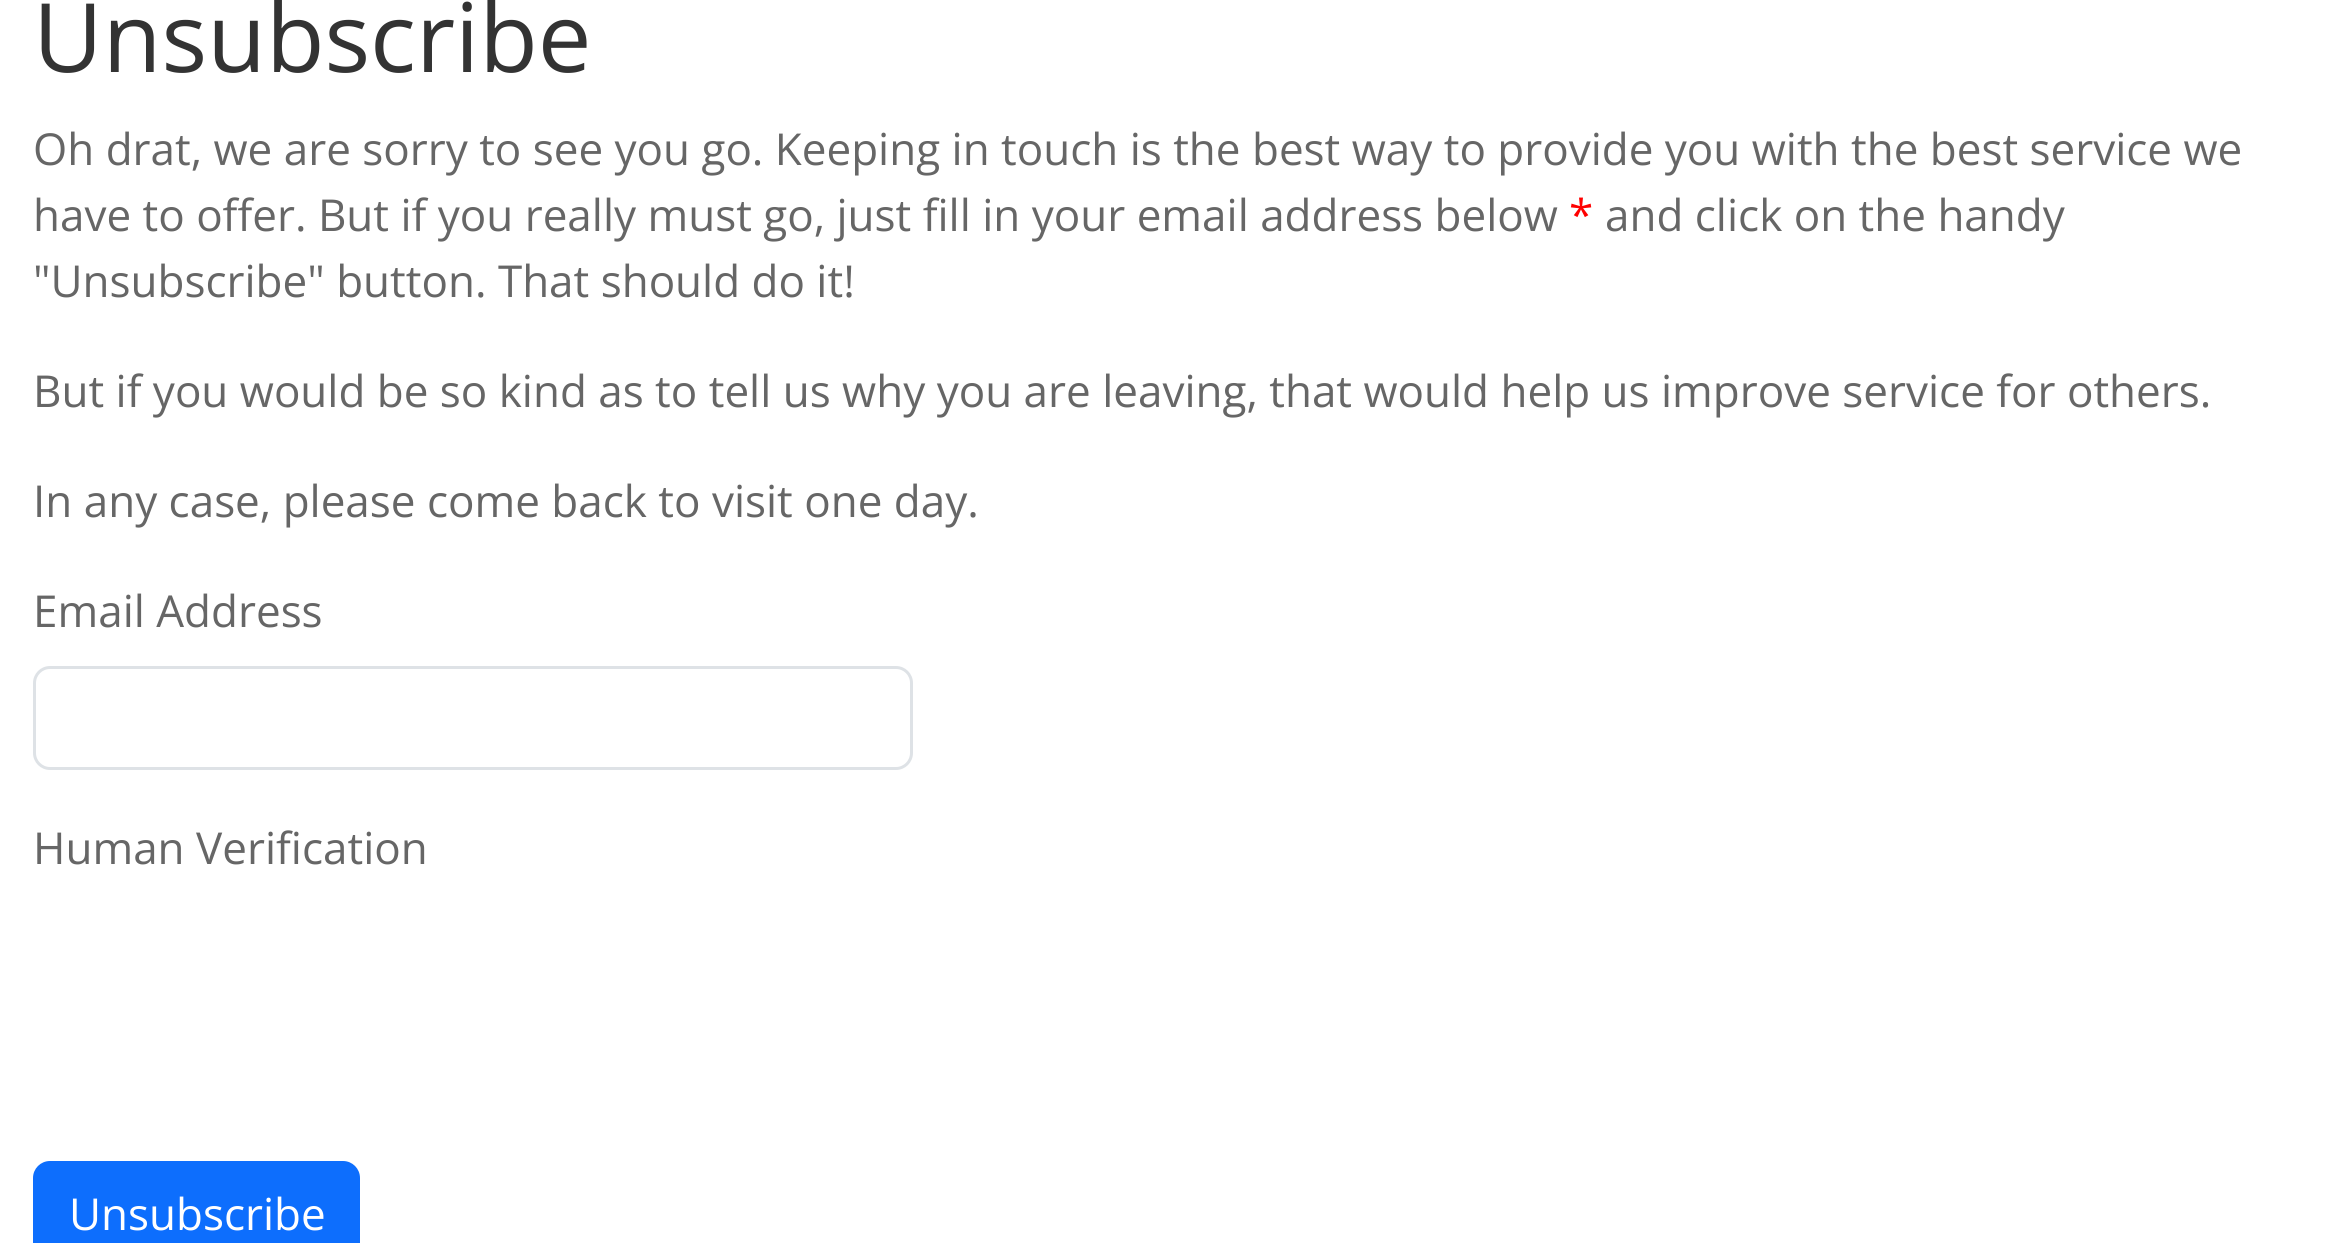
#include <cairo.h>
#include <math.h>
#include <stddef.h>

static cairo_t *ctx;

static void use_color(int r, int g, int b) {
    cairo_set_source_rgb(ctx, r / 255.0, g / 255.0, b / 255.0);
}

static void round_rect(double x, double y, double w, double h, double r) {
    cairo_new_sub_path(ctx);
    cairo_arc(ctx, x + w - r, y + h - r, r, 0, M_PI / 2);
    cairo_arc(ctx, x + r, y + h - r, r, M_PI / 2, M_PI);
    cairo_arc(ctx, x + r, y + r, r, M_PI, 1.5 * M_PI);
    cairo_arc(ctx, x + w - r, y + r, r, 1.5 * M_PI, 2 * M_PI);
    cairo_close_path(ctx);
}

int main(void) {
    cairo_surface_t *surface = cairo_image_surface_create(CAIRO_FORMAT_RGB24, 2350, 1243);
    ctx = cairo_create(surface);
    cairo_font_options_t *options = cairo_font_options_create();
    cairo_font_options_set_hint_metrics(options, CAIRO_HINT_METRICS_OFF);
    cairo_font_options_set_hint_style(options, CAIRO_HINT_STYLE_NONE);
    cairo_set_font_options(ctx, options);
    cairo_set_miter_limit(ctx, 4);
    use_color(255, 255, 255);
    cairo_paint(ctx);
    cairo_select_font_face(ctx, "Open Sans", CAIRO_FONT_SLANT_NORMAL, CAIRO_FONT_WEIGHT_NORMAL);
    cairo_set_font_size(ctx, 95.75);
    use_color(51, 51, 51);
    cairo_move_to(ctx, 33, 72);
    cairo_show_text(ctx, "Unsubscribe");
    cairo_set_font_size(ctx, 44);
    use_color(102, 102, 102);
    cairo_move_to(ctx, 33, 165);
    cairo_show_text(ctx, "Oh drat, we are sorry to see you go. Keeping in touch is the best way to provide you with the best service we");
    cairo_move_to(ctx, 33, 231);
    cairo_show_text(ctx, "have to offer. But if you really must go, just fill in your email address below");
    use_color(255, 0, 0);
    cairo_move_to(ctx, 1569, 231);
    cairo_show_text(ctx, "*");
    use_color(102, 102, 102);
    cairo_move_to(ctx, 1605, 231);
    cairo_show_text(ctx, "and click on the handy");
    cairo_move_to(ctx, 33, 297);
    cairo_show_text(ctx, "\"Unsubscribe\" button. That should do it!");
    cairo_move_to(ctx, 33, 407);
    cairo_show_text(ctx, "But if you would be so kind as to tell us why you are leaving, that would help us improve service for others.");
    cairo_move_to(ctx, 33, 517);
    cairo_show_text(ctx, "In any case, please come back to visit one day.");
    cairo_move_to(ctx, 33, 627);
    cairo_show_text(ctx, "Email Address");
    round_rect(34.5, 667.5, 877, 101, 15.5);
    use_color(222, 226, 230);
    cairo_set_line_width(ctx, 3);
    cairo_stroke(ctx);
    use_color(102, 102, 102);
    cairo_move_to(ctx, 33, 864);
    cairo_show_text(ctx, "Human Verification");
    use_color(13, 110, 253);
    round_rect(34.5, 1162.5, 324, 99, 15.5);
    cairo_fill_preserve(ctx);
    cairo_stroke(ctx);
    use_color(255, 255, 255);
    cairo_move_to(ctx, 69, 1230);
    cairo_show_text(ctx, "Unsubscribe");
    cairo_surface_write_to_png(surface, "result.png");
    cairo_font_options_destroy(options);
    cairo_destroy(ctx);
    cairo_surface_destroy(surface);
    return 0;
}
